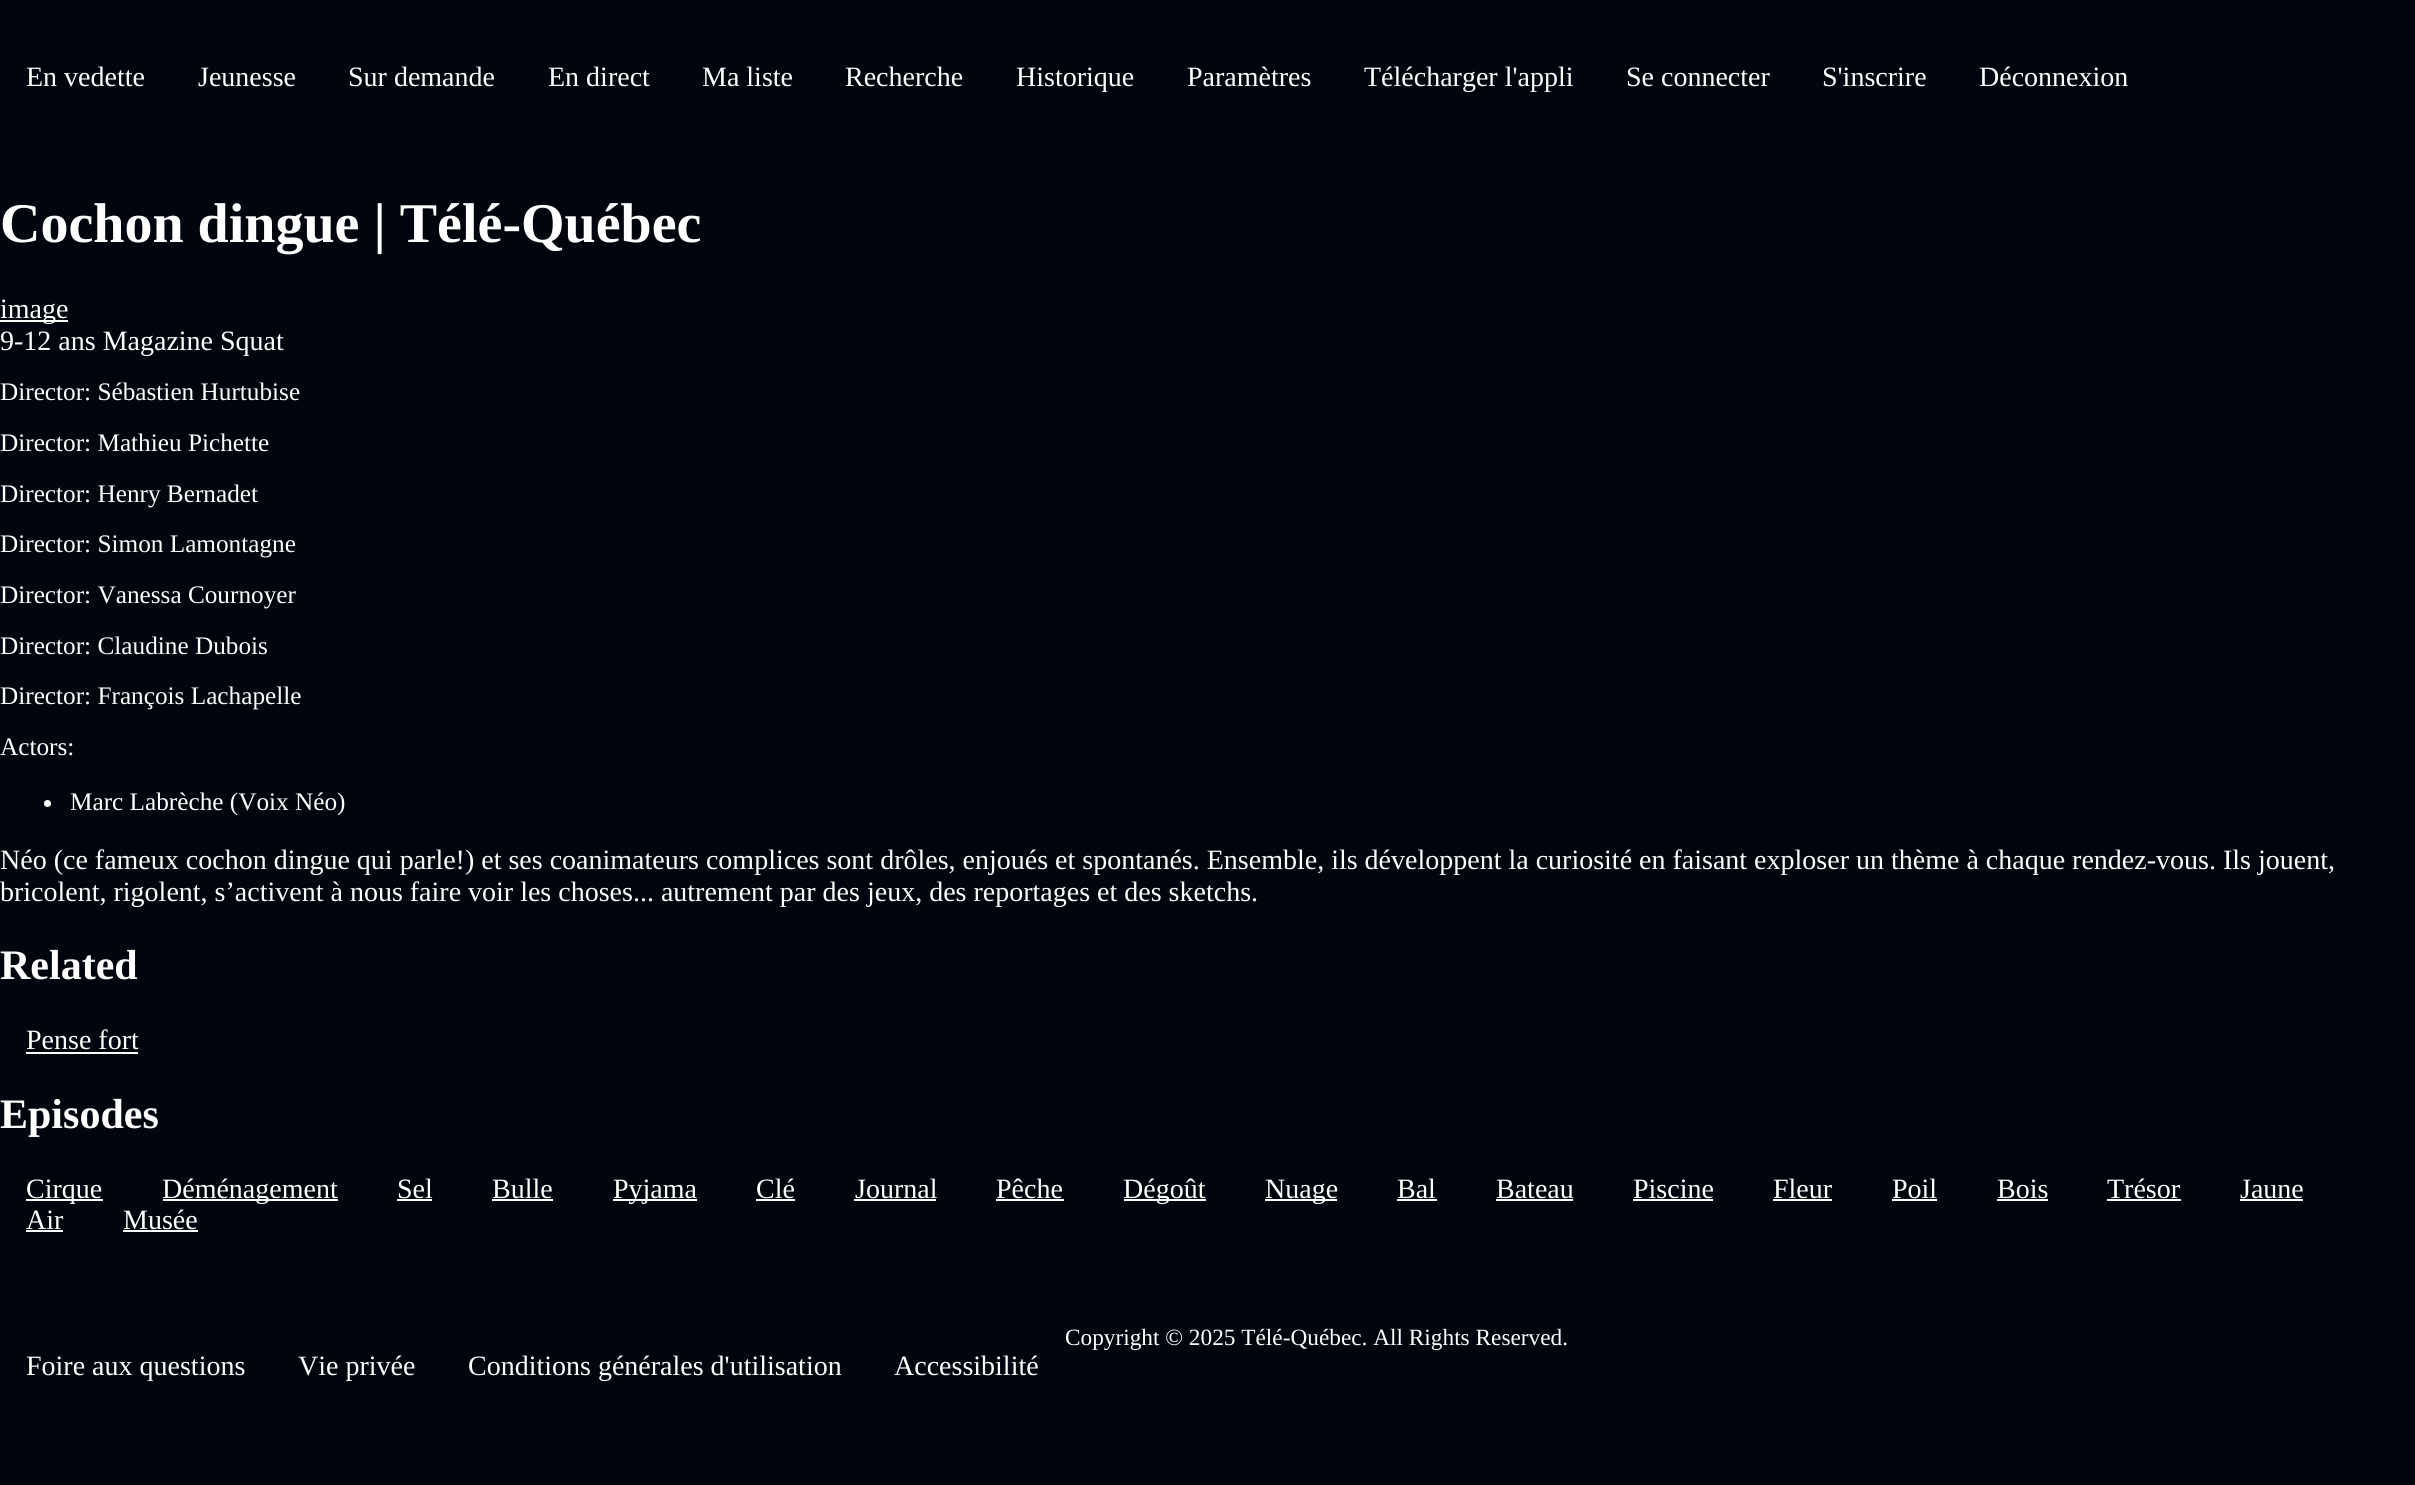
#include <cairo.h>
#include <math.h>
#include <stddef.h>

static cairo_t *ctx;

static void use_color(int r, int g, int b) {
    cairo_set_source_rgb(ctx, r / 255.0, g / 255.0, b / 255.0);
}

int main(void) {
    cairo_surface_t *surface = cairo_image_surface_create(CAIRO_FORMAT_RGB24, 2415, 1485);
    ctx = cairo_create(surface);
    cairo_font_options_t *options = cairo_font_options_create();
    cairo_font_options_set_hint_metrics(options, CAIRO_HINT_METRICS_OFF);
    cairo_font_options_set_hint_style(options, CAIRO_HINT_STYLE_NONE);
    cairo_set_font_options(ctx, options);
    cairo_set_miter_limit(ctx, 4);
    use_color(1, 5, 14);
    cairo_paint(ctx);
    cairo_select_font_face(ctx, "Liberation Serif", CAIRO_FONT_SLANT_NORMAL, CAIRO_FONT_WEIGHT_NORMAL);
    cairo_set_font_size(ctx, 28);
    use_color(255, 255, 255);
    cairo_move_to(ctx, 26, 86);
    cairo_show_text(ctx, "En vedette");
    cairo_move_to(ctx, 198, 86);
    cairo_show_text(ctx, "Jeunesse");
    cairo_move_to(ctx, 348, 86);
    cairo_show_text(ctx, "Sur demande");
    cairo_move_to(ctx, 548, 86);
    cairo_show_text(ctx, "En direct");
    cairo_move_to(ctx, 702, 86);
    cairo_show_text(ctx, "Ma liste");
    cairo_move_to(ctx, 845, 86);
    cairo_show_text(ctx, "Recherche");
    cairo_move_to(ctx, 1016, 86);
    cairo_show_text(ctx, "Historique");
    cairo_move_to(ctx, 1187, 86);
    cairo_show_text(ctx, "Paramètres");
    cairo_move_to(ctx, 1364, 86);
    cairo_show_text(ctx, "Télécharger l'appli");
    cairo_move_to(ctx, 1626, 86);
    cairo_show_text(ctx, "Se connecter");
    cairo_move_to(ctx, 1822, 86);
    cairo_show_text(ctx, "S'inscrire");
    cairo_move_to(ctx, 1979, 86);
    cairo_show_text(ctx, "Déconnexion");
    cairo_select_font_face(ctx, "Liberation Serif", CAIRO_FONT_SLANT_NORMAL, CAIRO_FONT_WEIGHT_BOLD);
    cairo_set_font_size(ctx, 56);
    cairo_move_to(ctx, 0, 242);
    cairo_show_text(ctx, "Cochon dingue | Télé-Québec");
    cairo_rectangle(ctx, 0, 320, 68, 2);
    cairo_fill(ctx);
    cairo_select_font_face(ctx, "Liberation Serif", CAIRO_FONT_SLANT_NORMAL, CAIRO_FONT_WEIGHT_NORMAL);
    cairo_set_font_size(ctx, 28);
    cairo_move_to(ctx, 0, 318);
    cairo_show_text(ctx, "image");
    cairo_move_to(ctx, 0, 350);
    cairo_show_text(ctx, "9-12 ans Magazine Squat");
    cairo_set_font_size(ctx, 25.25);
    cairo_move_to(ctx, 0, 400);
    cairo_show_text(ctx, "Director: Sébastien Hurtubise");
    cairo_move_to(ctx, 0, 451);
    cairo_show_text(ctx, "Director: Mathieu Pichette");
    cairo_move_to(ctx, 0, 502);
    cairo_show_text(ctx, "Director: Henry Bernadet");
    cairo_move_to(ctx, 0, 552);
    cairo_show_text(ctx, "Director: Simon Lamontagne");
    cairo_move_to(ctx, 0, 603);
    cairo_show_text(ctx, "Director: Vanessa Cournoyer");
    cairo_move_to(ctx, 0, 654);
    cairo_show_text(ctx, "Director: Claudine Dubois");
    cairo_move_to(ctx, 0, 704);
    cairo_show_text(ctx, "Director: François Lachapelle");
    cairo_move_to(ctx, 0, 755);
    cairo_show_text(ctx, "Actors:");
    cairo_new_path(ctx);
    cairo_arc(ctx, 47.5, 803.5, 3.5, 0, 2 * M_PI);
    cairo_fill(ctx);
    cairo_move_to(ctx, 70, 810);
    cairo_show_text(ctx, "Marc Labrèche (Voix Néo)");
    cairo_set_font_size(ctx, 28);
    cairo_move_to(ctx, 0, 869);
    cairo_show_text(ctx, "Néo (ce fameux cochon dingue qui parle!) et ses coanimateurs complices sont drôles, enjoués et spontanés. Ensemble, ils développent la curiosité en faisant exploser un thème à chaque rendez-vous. Ils jouent,");
    cairo_move_to(ctx, 0, 901);
    cairo_show_text(ctx, "bricolent, rigolent, s’activent à nous faire voir les choses... autrement par des jeux, des reportages et des sketchs.");
    cairo_select_font_face(ctx, "Liberation Serif", CAIRO_FONT_SLANT_NORMAL, CAIRO_FONT_WEIGHT_BOLD);
    cairo_set_font_size(ctx, 42);
    cairo_move_to(ctx, 0, 979);
    cairo_show_text(ctx, "Related");
    cairo_select_font_face(ctx, "Liberation Serif", CAIRO_FONT_SLANT_NORMAL, CAIRO_FONT_WEIGHT_NORMAL);
    cairo_set_font_size(ctx, 28);
    cairo_move_to(ctx, 26, 1049);
    cairo_show_text(ctx, "Pense fort");
    cairo_rectangle(ctx, 26, 1052, 112, 2);
    cairo_fill(ctx);
    cairo_select_font_face(ctx, "Liberation Serif", CAIRO_FONT_SLANT_NORMAL, CAIRO_FONT_WEIGHT_BOLD);
    cairo_set_font_size(ctx, 42);
    cairo_move_to(ctx, 0, 1128);
    cairo_show_text(ctx, "Episodes");
    cairo_rectangle(ctx, 26, 1199, 77, 2);
    cairo_fill(ctx);
    cairo_select_font_face(ctx, "Liberation Serif", CAIRO_FONT_SLANT_NORMAL, CAIRO_FONT_WEIGHT_NORMAL);
    cairo_set_font_size(ctx, 28);
    cairo_move_to(ctx, 26, 1198);
    cairo_show_text(ctx, "Cirque");
    cairo_rectangle(ctx, 163, 1199, 175, 2);
    cairo_fill(ctx);
    cairo_move_to(ctx, 162, 1198);
    cairo_show_text(ctx, "Déménagement");
    cairo_move_to(ctx, 397, 1198);
    cairo_show_text(ctx, "Sel");
    cairo_rectangle(ctx, 397, 1199, 35, 2);
    cairo_fill(ctx);
    cairo_move_to(ctx, 492, 1198);
    cairo_show_text(ctx, "Bulle");
    cairo_rectangle(ctx, 492, 1199, 61, 2);
    cairo_fill(ctx);
    cairo_rectangle(ctx, 613, 1199, 84, 2);
    cairo_fill(ctx);
    cairo_move_to(ctx, 613, 1198);
    cairo_show_text(ctx, "Pyjama");
    cairo_move_to(ctx, 756, 1198);
    cairo_show_text(ctx, "Clé");
    cairo_rectangle(ctx, 756, 1199, 39, 2);
    cairo_fill(ctx);
    cairo_move_to(ctx, 855, 1198);
    cairo_show_text(ctx, "Journal");
    cairo_rectangle(ctx, 854, 1199, 82, 2);
    cairo_fill(ctx);
    cairo_move_to(ctx, 996, 1198);
    cairo_show_text(ctx, "Pêche");
    cairo_rectangle(ctx, 996, 1199, 68, 2);
    cairo_fill(ctx);
    cairo_rectangle(ctx, 1124, 1199, 82, 2);
    cairo_fill(ctx);
    cairo_move_to(ctx, 1123, 1198);
    cairo_show_text(ctx, "Dégoût");
    cairo_rectangle(ctx, 1265, 1199, 72, 2);
    cairo_fill(ctx);
    cairo_move_to(ctx, 1265, 1198);
    cairo_show_text(ctx, "Nuage");
    cairo_move_to(ctx, 1397, 1198);
    cairo_show_text(ctx, "Bal");
    cairo_rectangle(ctx, 1397, 1199, 40, 2);
    cairo_fill(ctx);
    cairo_move_to(ctx, 1496, 1198);
    cairo_show_text(ctx, "Bateau");
    cairo_rectangle(ctx, 1496, 1199, 77, 2);
    cairo_fill(ctx);
    cairo_move_to(ctx, 1633, 1198);
    cairo_show_text(ctx, "Piscine");
    cairo_rectangle(ctx, 1633, 1199, 80, 2);
    cairo_fill(ctx);
    cairo_move_to(ctx, 1773, 1198);
    cairo_show_text(ctx, "Fleur");
    cairo_rectangle(ctx, 1773, 1199, 59, 2);
    cairo_fill(ctx);
    cairo_move_to(ctx, 1892, 1198);
    cairo_show_text(ctx, "Poil");
    cairo_rectangle(ctx, 1892, 1199, 45, 2);
    cairo_fill(ctx);
    cairo_move_to(ctx, 1997, 1198);
    cairo_show_text(ctx, "Bois");
    cairo_rectangle(ctx, 1997, 1199, 51, 2);
    cairo_fill(ctx);
    cairo_move_to(ctx, 2107, 1198);
    cairo_show_text(ctx, "Trésor");
    cairo_rectangle(ctx, 2107, 1199, 74, 2);
    cairo_fill(ctx);
    cairo_move_to(ctx, 2240, 1198);
    cairo_show_text(ctx, "Jaune");
    cairo_rectangle(ctx, 2240, 1199, 63, 2);
    cairo_fill(ctx);
    cairo_move_to(ctx, 26, 1229);
    cairo_show_text(ctx, "Air");
    cairo_rectangle(ctx, 26, 1230, 37, 2);
    cairo_fill(ctx);
    cairo_move_to(ctx, 123, 1229);
    cairo_show_text(ctx, "Musée");
    cairo_rectangle(ctx, 123, 1230, 75, 2);
    cairo_fill(ctx);
    cairo_set_font_size(ctx, 23.3);
    cairo_move_to(ctx, 1065, 1345);
    cairo_show_text(ctx, "Copyright © 2025 Télé-Québec. All Rights Reserved.");
    cairo_set_font_size(ctx, 28);
    cairo_move_to(ctx, 26, 1375);
    cairo_show_text(ctx, "Foire aux questions");
    cairo_move_to(ctx, 298, 1375);
    cairo_show_text(ctx, "Vie privée");
    cairo_move_to(ctx, 468, 1375);
    cairo_show_text(ctx, "Conditions générales d'utilisation");
    cairo_move_to(ctx, 894, 1375);
    cairo_show_text(ctx, "Accessibilité");
    cairo_surface_write_to_png(surface, "result.png");
    cairo_font_options_destroy(options);
    cairo_destroy(ctx);
    cairo_surface_destroy(surface);
    return 0;
}
